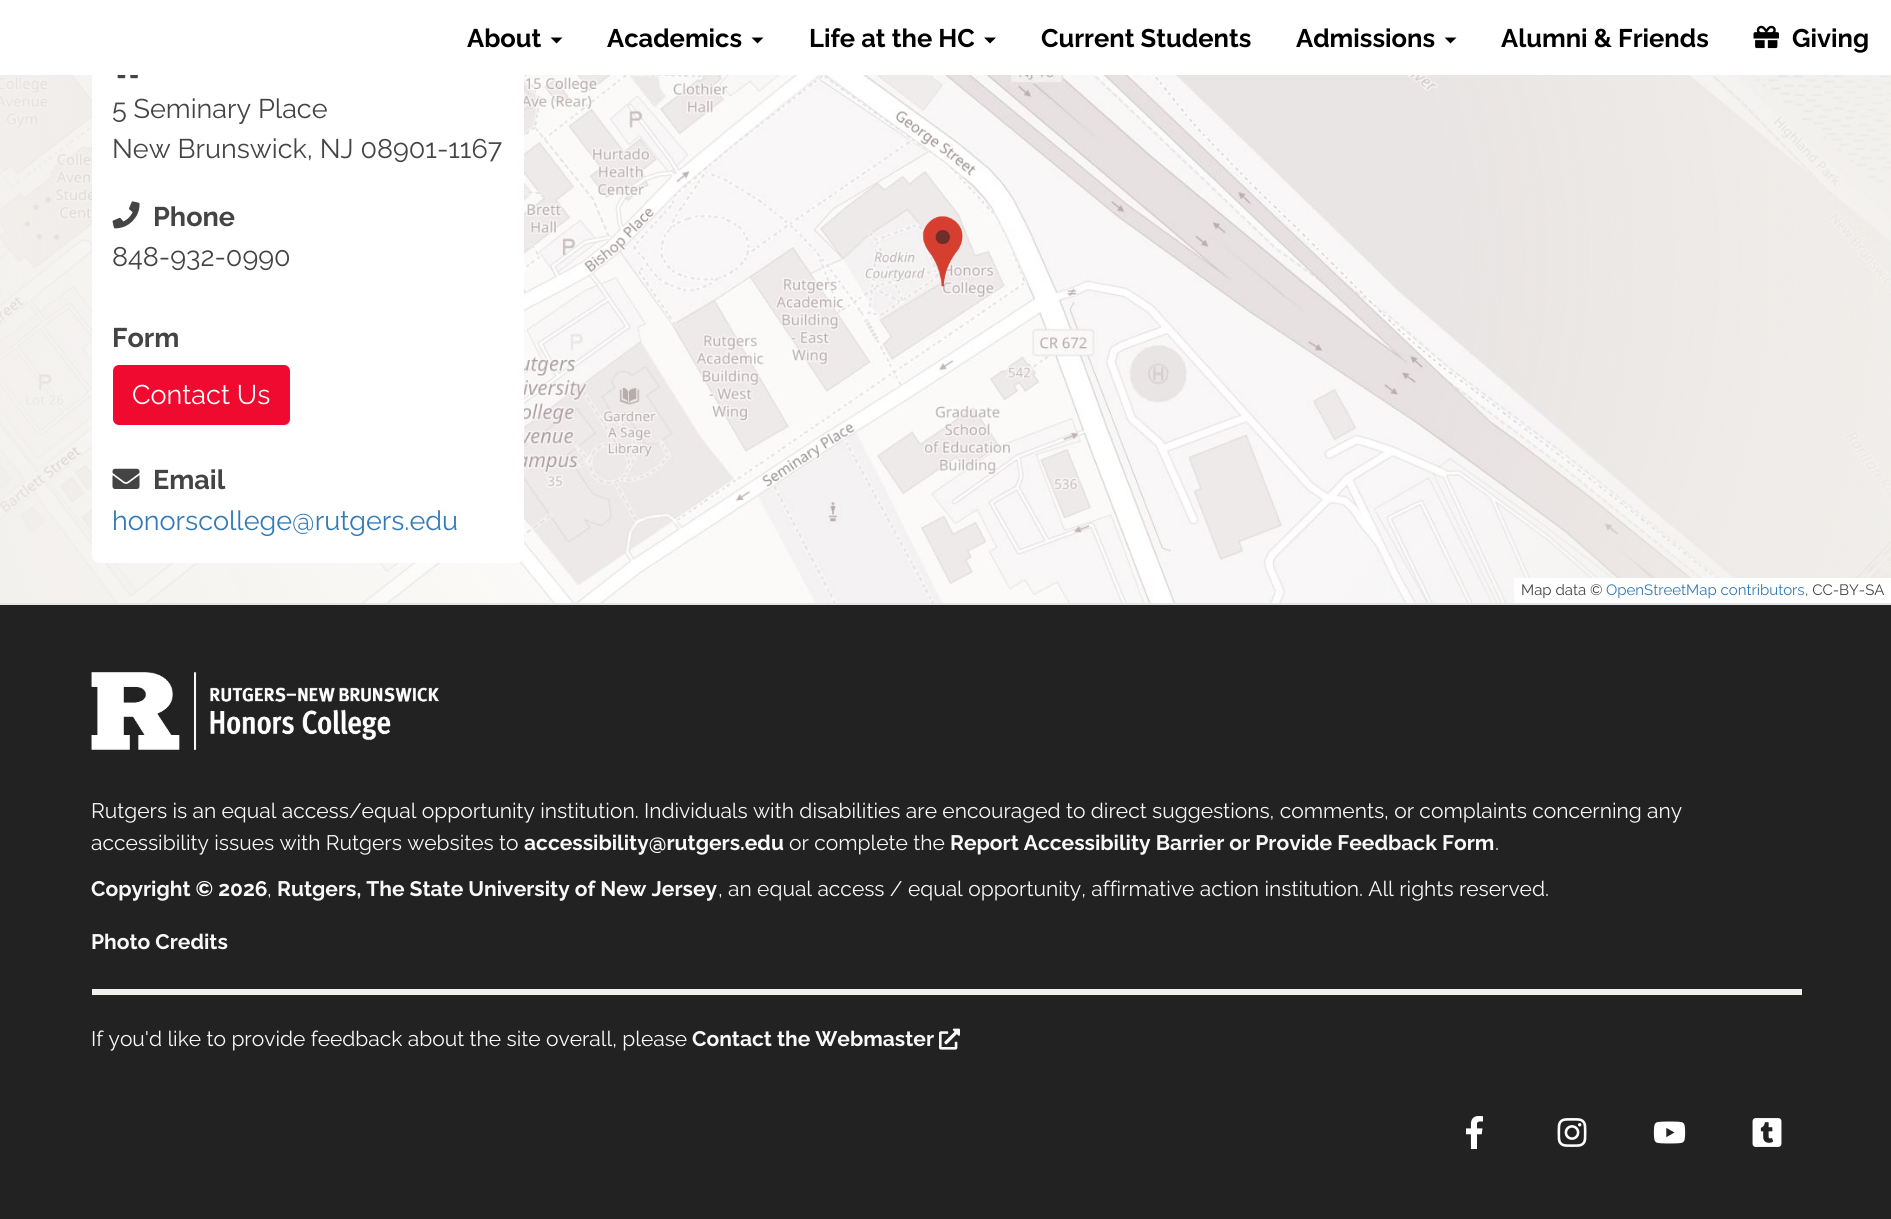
#include <cairo.h>
#include <math.h>
#include <stddef.h>

static cairo_t *ctx;

static void use_color(int r, int g, int b) {
    cairo_set_source_rgb(ctx, r / 255.0, g / 255.0, b / 255.0);
}

static void round_rect(double x, double y, double w, double h, double r) {
    cairo_new_sub_path(ctx);
    cairo_arc(ctx, x + w - r, y + h - r, r, 0, M_PI / 2);
    cairo_arc(ctx, x + r, y + h - r, r, M_PI / 2, M_PI);
    cairo_arc(ctx, x + r, y + r, r, M_PI, 1.5 * M_PI);
    cairo_arc(ctx, x + w - r, y + r, r, 1.5 * M_PI, 2 * M_PI);
    cairo_close_path(ctx);
}

static void picture(const char *path, double x, double y, double w, double h) {
    cairo_surface_t *image = cairo_image_surface_create_from_png(path);
    cairo_save(ctx);
    cairo_set_source_surface(ctx, image, x, y);
    cairo_rectangle(ctx, x, y, w, h);
    cairo_fill(ctx);
    cairo_restore(ctx);
    cairo_surface_destroy(image);
}

int main(void) {
    cairo_surface_t *surface = cairo_image_surface_create(CAIRO_FORMAT_RGB24, 1891, 1219);
    ctx = cairo_create(surface);
    cairo_font_options_t *options = cairo_font_options_create();
    cairo_font_options_set_hint_metrics(options, CAIRO_HINT_METRICS_OFF);
    cairo_font_options_set_hint_style(options, CAIRO_HINT_STYLE_NONE);
    cairo_set_font_options(ctx, options);
    cairo_set_miter_limit(ctx, 4);
    use_color(255, 255, 255);
    cairo_paint(ctx);
    picture("img2.png", 0, 75, 1891, 528);
    use_color(255, 255, 255);
    round_rect(92, -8, 432, 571, 8);
    cairo_fill(ctx);
    cairo_select_font_face(ctx, "Raleway", CAIRO_FONT_SLANT_NORMAL, CAIRO_FONT_WEIGHT_BOLD);
    cairo_set_font_size(ctx, 25.5);
    use_color(0, 0, 0);
    cairo_move_to(ctx, 467, 47);
    cairo_show_text(ctx, "About");
    cairo_new_path(ctx);
    cairo_move_to(ctx, 550.5, 37.5);
    cairo_line_to(ctx, 562.5, 37.5);
    cairo_line_to(ctx, 556.5, 43.5);
    cairo_close_path(ctx);
    cairo_fill(ctx);
    cairo_move_to(ctx, 607, 47);
    cairo_show_text(ctx, "Academics");
    cairo_new_path(ctx);
    cairo_move_to(ctx, 751.5, 37.5);
    cairo_line_to(ctx, 763.5, 37.5);
    cairo_line_to(ctx, 757.5, 43.5);
    cairo_close_path(ctx);
    cairo_fill(ctx);
    cairo_move_to(ctx, 809, 47);
    cairo_show_text(ctx, "Life at the HC");
    cairo_new_path(ctx);
    cairo_move_to(ctx, 984, 37.5);
    cairo_line_to(ctx, 996, 37.5);
    cairo_line_to(ctx, 990, 43.5);
    cairo_close_path(ctx);
    cairo_fill(ctx);
    cairo_move_to(ctx, 1041, 47);
    cairo_show_text(ctx, "Current Students");
    cairo_move_to(ctx, 1296, 47);
    cairo_show_text(ctx, "Admissions");
    cairo_new_path(ctx);
    cairo_move_to(ctx, 1444.5, 37.5);
    cairo_line_to(ctx, 1456.5, 37.5);
    cairo_line_to(ctx, 1450.5, 43.5);
    cairo_close_path(ctx);
    cairo_fill(ctx);
    cairo_move_to(ctx, 1501, 47);
    cairo_show_text(ctx, "Alumni & Friends");
    picture("img1.png", 1753, 25, 26, 24);
    cairo_move_to(ctx, 1792, 47);
    cairo_show_text(ctx, "Giving");
    picture("img3.png", 922, 216, 41, 71);
    picture("img4.png", 117, 75, 21, 4);
    cairo_select_font_face(ctx, "Raleway", CAIRO_FONT_SLANT_NORMAL, CAIRO_FONT_WEIGHT_NORMAL);
    cairo_set_font_size(ctx, 27);
    use_color(68, 68, 68);
    cairo_move_to(ctx, 112, 118);
    cairo_show_text(ctx, "5 Seminary Place");
    cairo_move_to(ctx, 112, 158);
    cairo_show_text(ctx, "New Brunswick, NJ 08901-1167");
    picture("img5.png", 112, 201, 28, 28);
    cairo_select_font_face(ctx, "Raleway", CAIRO_FONT_SLANT_NORMAL, CAIRO_FONT_WEIGHT_BOLD);
    cairo_move_to(ctx, 153, 226);
    cairo_show_text(ctx, "Phone");
    cairo_select_font_face(ctx, "Raleway", CAIRO_FONT_SLANT_NORMAL, CAIRO_FONT_WEIGHT_NORMAL);
    cairo_move_to(ctx, 112, 266);
    cairo_show_text(ctx, "848-932-0990");
    cairo_select_font_face(ctx, "Raleway", CAIRO_FONT_SLANT_NORMAL, CAIRO_FONT_WEIGHT_BOLD);
    cairo_move_to(ctx, 112, 347);
    cairo_show_text(ctx, "Form");
    use_color(240, 10, 48);
    round_rect(113, 365, 177, 60, 6);
    cairo_fill(ctx);
    cairo_select_font_face(ctx, "Raleway", CAIRO_FONT_SLANT_NORMAL, CAIRO_FONT_WEIGHT_NORMAL);
    use_color(255, 255, 255);
    cairo_move_to(ctx, 132, 404);
    cairo_show_text(ctx, "Contact Us");
    picture("img6.png", 112, 468, 28, 21);
    cairo_select_font_face(ctx, "Raleway", CAIRO_FONT_SLANT_NORMAL, CAIRO_FONT_WEIGHT_BOLD);
    use_color(68, 68, 68);
    cairo_move_to(ctx, 153, 489);
    cairo_show_text(ctx, "Email");
    cairo_select_font_face(ctx, "Raleway", CAIRO_FONT_SLANT_NORMAL, CAIRO_FONT_WEIGHT_NORMAL);
    use_color(51, 122, 183);
    cairo_move_to(ctx, 112, 530);
    cairo_show_text(ctx, "honorscollege@rutgers.edu");
    use_color(255, 255, 255);
    cairo_rectangle(ctx, 1514, 578, 377, 25);
    cairo_fill(ctx);
    cairo_set_font_size(ctx, 15);
    use_color(68, 68, 68);
    cairo_move_to(ctx, 1521, 595);
    cairo_show_text(ctx, "Map data ©");
    use_color(51, 122, 183);
    cairo_move_to(ctx, 1606, 595);
    cairo_show_text(ctx, "OpenStreetMap contributors");
    use_color(68, 68, 68);
    cairo_move_to(ctx, 1805, 595);
    cairo_show_text(ctx, ", CC-BY-SA");
    use_color(34, 34, 34);
    cairo_rectangle(ctx, 0, 605, 1891, 614);
    cairo_fill(ctx);
    use_color(229, 229, 229);
    cairo_rectangle(ctx, 0, 603, 1891, 2);
    cairo_fill(ctx);
    picture("img7.png", 91, 672, 349, 78);
    cairo_set_font_size(ctx, 21);
    use_color(248, 248, 248);
    cairo_move_to(ctx, 91, 818);
    cairo_show_text(ctx, "Rutgers is an equal access/equal opportunity institution. Individuals with disabilities are encouraged to direct suggestions, comments, or complaints concerning any");
    cairo_move_to(ctx, 91, 850);
    cairo_show_text(ctx, "accessibility issues with Rutgers websites to");
    cairo_select_font_face(ctx, "Raleway", CAIRO_FONT_SLANT_NORMAL, CAIRO_FONT_WEIGHT_BOLD);
    cairo_move_to(ctx, 524, 850);
    cairo_show_text(ctx, "accessibility@rutgers.edu");
    cairo_select_font_face(ctx, "Raleway", CAIRO_FONT_SLANT_NORMAL, CAIRO_FONT_WEIGHT_NORMAL);
    cairo_move_to(ctx, 789, 850);
    cairo_show_text(ctx, "or complete the");
    cairo_select_font_face(ctx, "Raleway", CAIRO_FONT_SLANT_NORMAL, CAIRO_FONT_WEIGHT_BOLD);
    cairo_move_to(ctx, 950, 850);
    cairo_show_text(ctx, "Report Accessibility Barrier or Provide Feedback Form");
    cairo_select_font_face(ctx, "Raleway", CAIRO_FONT_SLANT_NORMAL, CAIRO_FONT_WEIGHT_NORMAL);
    cairo_move_to(ctx, 1495, 850);
    cairo_show_text(ctx, ".");
    cairo_select_font_face(ctx, "Raleway", CAIRO_FONT_SLANT_NORMAL, CAIRO_FONT_WEIGHT_BOLD);
    cairo_move_to(ctx, 91, 896);
    cairo_show_text(ctx, "Copyright © 2026");
    cairo_select_font_face(ctx, "Raleway", CAIRO_FONT_SLANT_NORMAL, CAIRO_FONT_WEIGHT_NORMAL);
    cairo_move_to(ctx, 267, 896);
    cairo_show_text(ctx, ",");
    cairo_select_font_face(ctx, "Raleway", CAIRO_FONT_SLANT_NORMAL, CAIRO_FONT_WEIGHT_BOLD);
    cairo_move_to(ctx, 277, 896);
    cairo_show_text(ctx, "Rutgers, The State University of New Jersey");
    cairo_select_font_face(ctx, "Raleway", CAIRO_FONT_SLANT_NORMAL, CAIRO_FONT_WEIGHT_NORMAL);
    cairo_move_to(ctx, 718, 896);
    cairo_show_text(ctx, ", an equal access / equal opportunity, affirmative action institution. All rights reserved.");
    cairo_select_font_face(ctx, "Raleway", CAIRO_FONT_SLANT_NORMAL, CAIRO_FONT_WEIGHT_BOLD);
    cairo_move_to(ctx, 91, 949);
    cairo_show_text(ctx, "Photo Credits");
    use_color(242, 240, 236);
    cairo_rectangle(ctx, 92, 989, 1710, 6);
    cairo_fill(ctx);
    cairo_select_font_face(ctx, "Raleway", CAIRO_FONT_SLANT_NORMAL, CAIRO_FONT_WEIGHT_NORMAL);
    use_color(248, 248, 248);
    cairo_move_to(ctx, 91, 1046);
    cairo_show_text(ctx, "If you'd like to provide feedback about the site overall, please");
    cairo_select_font_face(ctx, "Raleway", CAIRO_FONT_SLANT_NORMAL, CAIRO_FONT_WEIGHT_BOLD);
    cairo_move_to(ctx, 692, 1046);
    cairo_show_text(ctx, "Contact the Webmaster");
    picture("img8.png", 939, 1028, 21, 22);
    picture("img9.png", 1466, 1116, 17, 33);
    picture("img10.png", 1557, 1118, 30, 29);
    picture("img11.png", 1653, 1121, 33, 23);
    picture("img12.png", 1752, 1118, 30, 29);
    cairo_surface_write_to_png(surface, "result.png");
    cairo_font_options_destroy(options);
    cairo_destroy(ctx);
    cairo_surface_destroy(surface);
    return 0;
}
